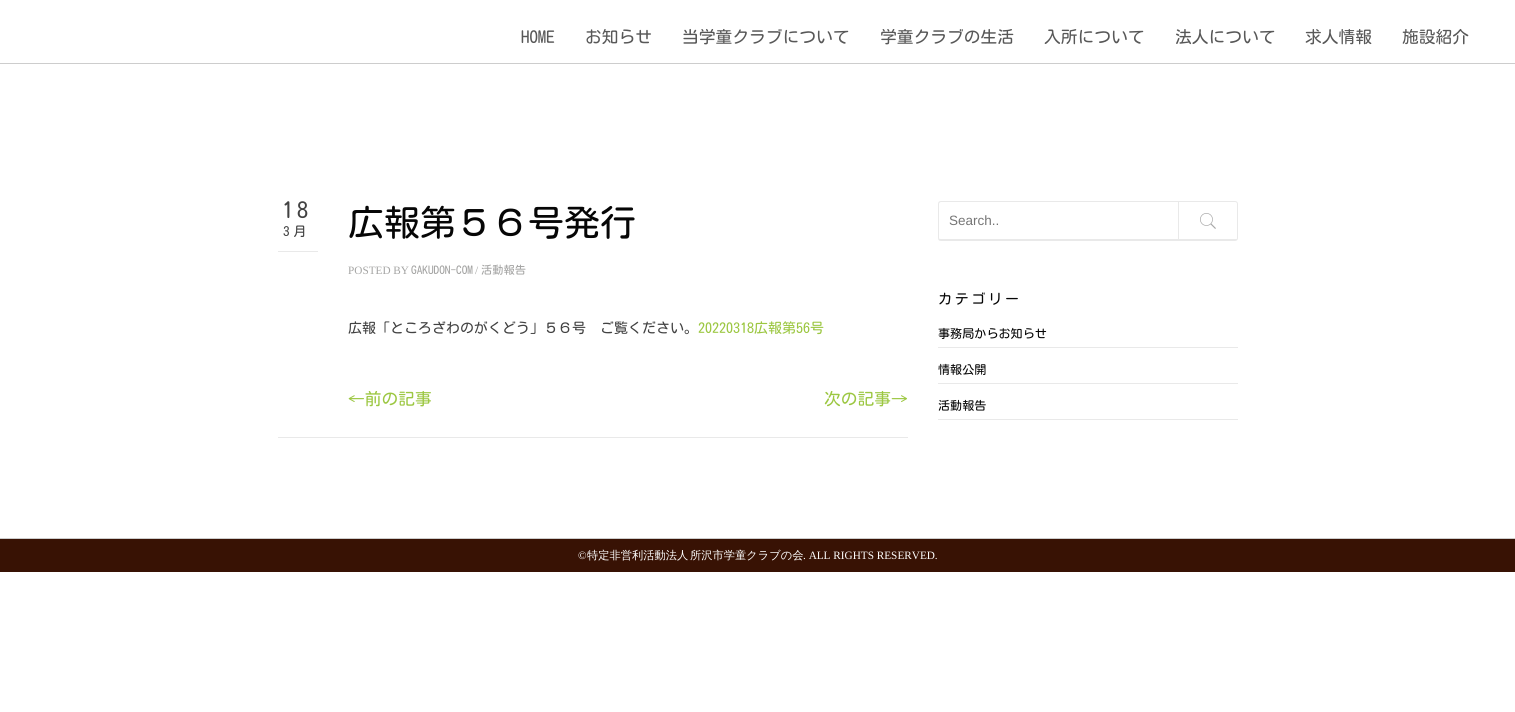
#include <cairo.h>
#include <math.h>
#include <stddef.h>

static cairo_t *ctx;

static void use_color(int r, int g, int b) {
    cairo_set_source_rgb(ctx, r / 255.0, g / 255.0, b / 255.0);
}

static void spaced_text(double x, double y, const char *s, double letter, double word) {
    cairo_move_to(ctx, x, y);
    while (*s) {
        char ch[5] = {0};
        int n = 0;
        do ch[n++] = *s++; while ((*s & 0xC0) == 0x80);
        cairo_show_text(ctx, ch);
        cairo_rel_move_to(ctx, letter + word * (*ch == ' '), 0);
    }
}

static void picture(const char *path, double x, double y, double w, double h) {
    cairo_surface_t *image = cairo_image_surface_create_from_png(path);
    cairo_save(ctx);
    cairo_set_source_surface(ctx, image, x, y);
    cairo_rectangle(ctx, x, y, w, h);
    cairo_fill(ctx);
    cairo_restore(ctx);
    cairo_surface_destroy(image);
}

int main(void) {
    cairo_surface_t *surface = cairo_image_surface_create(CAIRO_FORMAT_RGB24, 1515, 712);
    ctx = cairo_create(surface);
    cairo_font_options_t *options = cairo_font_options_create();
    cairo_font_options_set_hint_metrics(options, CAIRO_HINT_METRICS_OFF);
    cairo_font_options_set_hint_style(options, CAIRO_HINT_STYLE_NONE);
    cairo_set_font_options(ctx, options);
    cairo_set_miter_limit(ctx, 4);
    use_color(255, 255, 255);
    cairo_paint(ctx);
    use_color(205, 205, 205);
    cairo_rectangle(ctx, 0, 63, 1515, 1);
    cairo_fill(ctx);
    cairo_select_font_face(ctx, "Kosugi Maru", CAIRO_FONT_SLANT_NORMAL, CAIRO_FONT_WEIGHT_NORMAL);
    cairo_set_font_size(ctx, 16.75);
    use_color(88, 88, 88);
    cairo_move_to(ctx, 521, 43);
    cairo_show_text(ctx, "HOME");
    cairo_move_to(ctx, 585, 43);
    cairo_show_text(ctx, "お知らせ");
    cairo_move_to(ctx, 682, 43);
    cairo_show_text(ctx, "当学童クラブについて");
    cairo_move_to(ctx, 880, 43);
    cairo_show_text(ctx, "学童クラブの生活");
    cairo_move_to(ctx, 1044, 43);
    cairo_show_text(ctx, "入所について");
    cairo_move_to(ctx, 1175, 43);
    cairo_show_text(ctx, "法人について");
    cairo_move_to(ctx, 1305, 43);
    cairo_show_text(ctx, "求人情報");
    cairo_move_to(ctx, 1402, 43);
    cairo_show_text(ctx, "施設紹介");
    use_color(233, 233, 233);
    cairo_rectangle(ctx, 278, 437, 630, 1);
    cairo_fill(ctx);
    cairo_rectangle(ctx, 278, 251, 40, 1);
    cairo_fill(ctx);
    cairo_set_font_size(ctx, 22);
    use_color(66, 66, 66);
    spaced_text(282, 218, "18", 4, 0);
    cairo_set_font_size(ctx, 13);
    spaced_text(283, 236, "3月", 4, 0);
    cairo_set_font_size(ctx, 36);
    use_color(6, 6, 6);
    cairo_move_to(ctx, 348, 236);
    cairo_show_text(ctx, "広報第５６号発行");
    cairo_select_font_face(ctx, "Liberation Serif", CAIRO_FONT_SLANT_NORMAL, CAIRO_FONT_WEIGHT_NORMAL);
    cairo_set_font_size(ctx, 11.25);
    use_color(164, 164, 163);
    cairo_move_to(ctx, 348, 274);
    cairo_show_text(ctx, "POSTED BY");
    cairo_select_font_face(ctx, "Kosugi Maru", CAIRO_FONT_SLANT_NORMAL, CAIRO_FONT_WEIGHT_NORMAL);
    cairo_move_to(ctx, 411, 274);
    cairo_show_text(ctx, "GAKUDON-COM");
    cairo_select_font_face(ctx, "Liberation Serif", CAIRO_FONT_SLANT_NORMAL, CAIRO_FONT_WEIGHT_NORMAL);
    cairo_move_to(ctx, 475, 274);
    cairo_show_text(ctx, "/");
    cairo_select_font_face(ctx, "Kosugi Maru", CAIRO_FONT_SLANT_NORMAL, CAIRO_FONT_WEIGHT_NORMAL);
    cairo_move_to(ctx, 481, 274);
    cairo_show_text(ctx, "活動報告");
    cairo_set_font_size(ctx, 14);
    use_color(66, 66, 66);
    cairo_move_to(ctx, 348, 333);
    cairo_show_text(ctx, "広報「ところざわのがくどう」５６号　ご覧ください。");
    use_color(156, 199, 66);
    cairo_move_to(ctx, 698, 333);
    cairo_show_text(ctx, "20220318広報第56号");
    cairo_set_font_size(ctx, 16.75);
    cairo_move_to(ctx, 348, 405);
    cairo_show_text(ctx, "←前の記事");
    cairo_move_to(ctx, 824, 405);
    cairo_show_text(ctx, "次の記事→");
    use_color(233, 233, 233);
    cairo_set_fill_rule(ctx, CAIRO_FILL_RULE_EVEN_ODD);
    cairo_new_path(ctx);
    cairo_move_to(ctx, 941, 201);
    cairo_line_to(ctx, 1178, 201);
    cairo_line_to(ctx, 1178, 241);
    cairo_line_to(ctx, 941, 241);
    cairo_curve_to(ctx, 939, 241, 938, 240, 938, 238);
    cairo_line_to(ctx, 938, 204);
    cairo_curve_to(ctx, 938, 202, 939, 201, 941, 201);
    cairo_close_path(ctx);
    cairo_move_to(ctx, 941, 202);
    cairo_line_to(ctx, 1178, 202);
    cairo_line_to(ctx, 1178, 239);
    cairo_line_to(ctx, 941, 239);
    cairo_curve_to(ctx, 940, 239, 939, 239, 939, 238);
    cairo_line_to(ctx, 939, 204);
    cairo_curve_to(ctx, 939, 203, 940, 202, 941, 202);
    cairo_close_path(ctx);
    cairo_fill(ctx);
    cairo_select_font_face(ctx, "Liberation Sans", CAIRO_FONT_SLANT_NORMAL, CAIRO_FONT_WEIGHT_NORMAL);
    cairo_set_font_size(ctx, 13.5);
    use_color(117, 117, 117);
    cairo_move_to(ctx, 949, 225);
    cairo_show_text(ctx, "Search..");
    picture("img1.png", 1200, 213, 16, 16);
    cairo_new_path(ctx);
    cairo_move_to(ctx, 1178.5, 201.5);
    cairo_line_to(ctx, 1235, 201.5);
    cairo_curve_to(ctx, 1236.5, 201.5, 1237.5, 202.5, 1237.5, 204);
    cairo_line_to(ctx, 1237.5, 238);
    cairo_curve_to(ctx, 1237.5, 239.5, 1236.5, 240.5, 1235, 240.5);
    cairo_line_to(ctx, 1178.5, 240.5);
    cairo_close_path(ctx);
    use_color(233, 233, 233);
    cairo_set_line_width(ctx, 1);
    cairo_stroke(ctx);
    cairo_rectangle(ctx, 1178, 239, 59, 1);
    cairo_fill(ctx);
    cairo_select_font_face(ctx, "Kosugi Maru", CAIRO_FONT_SLANT_NORMAL, CAIRO_FONT_WEIGHT_NORMAL);
    cairo_set_font_size(ctx, 14);
    use_color(6, 6, 6);
    spaced_text(938, 304, "カテゴリー", 2.75, 0);
    use_color(233, 233, 233);
    cairo_rectangle(ctx, 938, 347, 300, 1);
    cairo_fill(ctx);
    cairo_set_font_size(ctx, 12.1);
    use_color(6, 6, 6);
    cairo_move_to(ctx, 938, 338);
    cairo_show_text(ctx, "事務局からお知らせ");
    use_color(233, 233, 233);
    cairo_rectangle(ctx, 938, 383, 300, 1);
    cairo_fill(ctx);
    use_color(6, 6, 6);
    cairo_move_to(ctx, 938, 374);
    cairo_show_text(ctx, "情報公開");
    use_color(233, 233, 233);
    cairo_rectangle(ctx, 938, 419, 300, 1);
    cairo_fill(ctx);
    use_color(6, 6, 6);
    cairo_move_to(ctx, 938, 410);
    cairo_show_text(ctx, "活動報告");
    use_color(204, 204, 204);
    cairo_rectangle(ctx, 0, 538, 1515, 1);
    cairo_fill(ctx);
    use_color(56, 18, 4);
    cairo_rectangle(ctx, 0, 539, 1515, 33);
    cairo_fill(ctx);
    cairo_select_font_face(ctx, "Liberation Serif", CAIRO_FONT_SLANT_NORMAL, CAIRO_FONT_WEIGHT_NORMAL);
    cairo_set_font_size(ctx, 11.25);
    use_color(255, 255, 255);
    cairo_move_to(ctx, 578, 559);
    cairo_show_text(ctx, "©");
    cairo_select_font_face(ctx, "WenQuanYi Zen Hei Medium", CAIRO_FONT_SLANT_NORMAL, CAIRO_FONT_WEIGHT_NORMAL);
    cairo_move_to(ctx, 587, 559);
    cairo_show_text(ctx, "特定非営利活動法人");
    cairo_move_to(ctx, 690, 559);
    cairo_show_text(ctx, "所沢市学童クラブの会");
    cairo_select_font_face(ctx, "Liberation Serif", CAIRO_FONT_SLANT_NORMAL, CAIRO_FONT_WEIGHT_NORMAL);
    cairo_move_to(ctx, 803, 559);
    cairo_show_text(ctx, ". ALL RIGHTS RESERVED.");
    cairo_surface_write_to_png(surface, "result.png");
    cairo_font_options_destroy(options);
    cairo_destroy(ctx);
    cairo_surface_destroy(surface);
    return 0;
}
